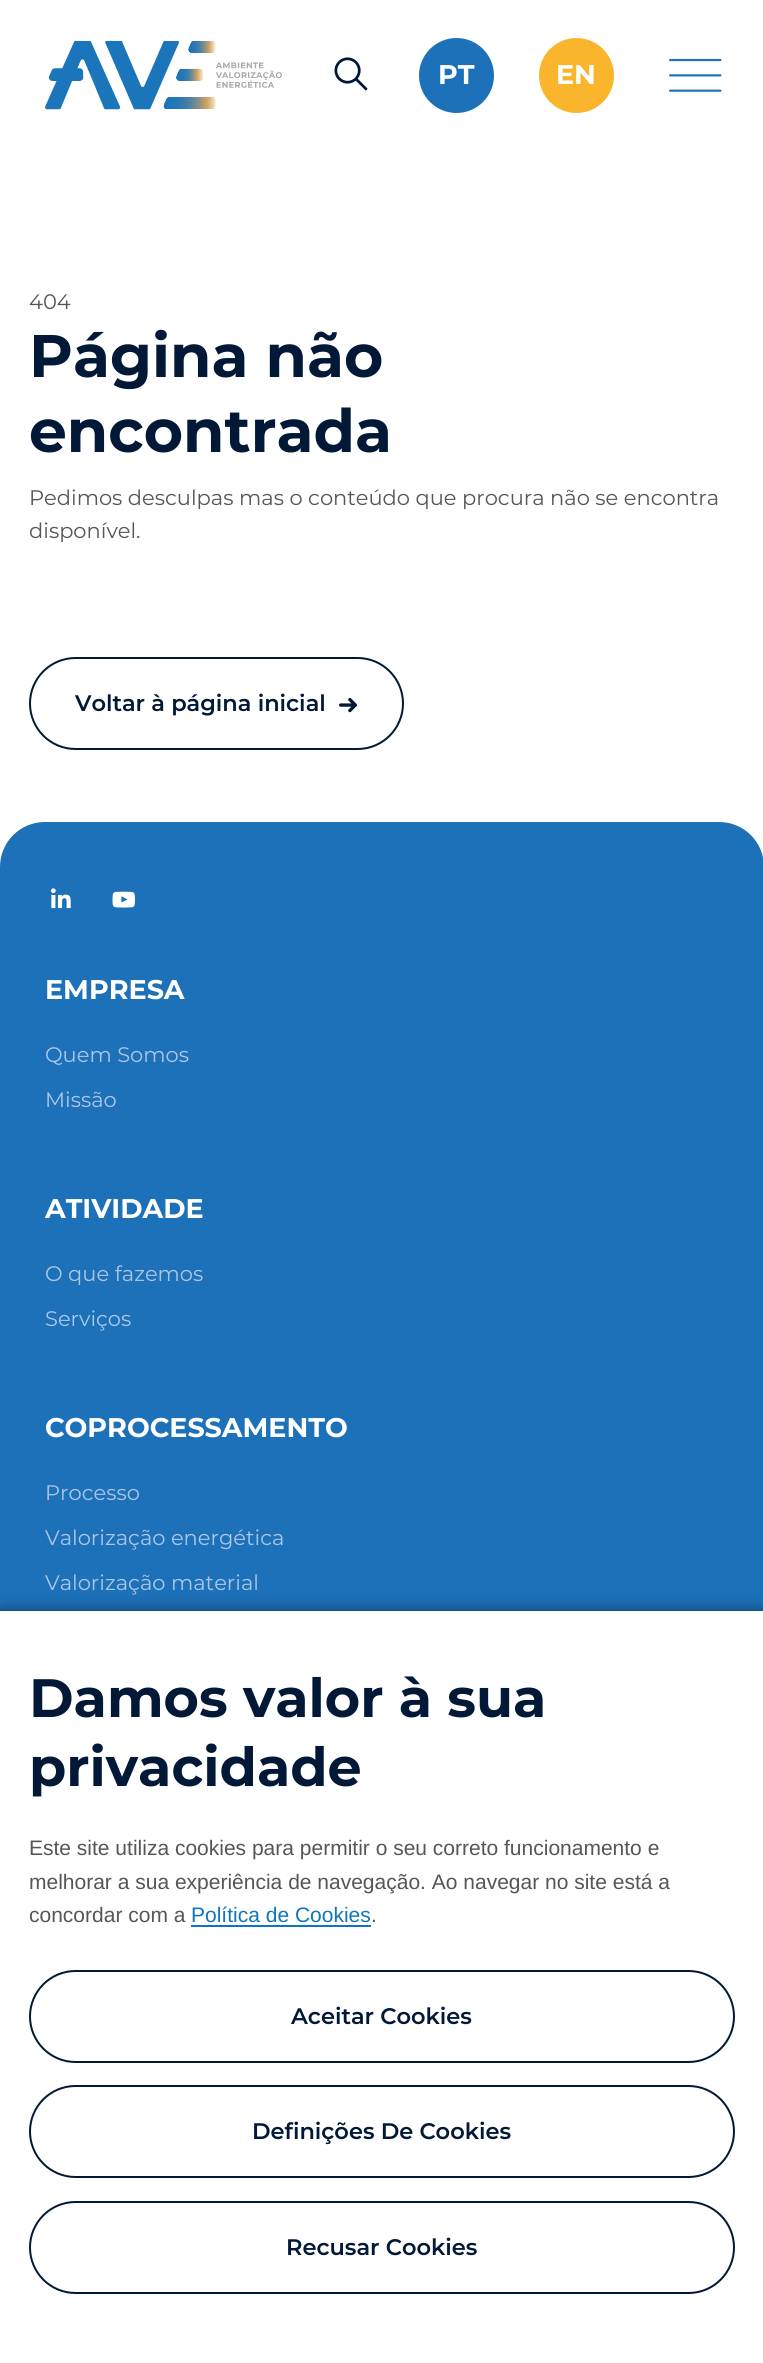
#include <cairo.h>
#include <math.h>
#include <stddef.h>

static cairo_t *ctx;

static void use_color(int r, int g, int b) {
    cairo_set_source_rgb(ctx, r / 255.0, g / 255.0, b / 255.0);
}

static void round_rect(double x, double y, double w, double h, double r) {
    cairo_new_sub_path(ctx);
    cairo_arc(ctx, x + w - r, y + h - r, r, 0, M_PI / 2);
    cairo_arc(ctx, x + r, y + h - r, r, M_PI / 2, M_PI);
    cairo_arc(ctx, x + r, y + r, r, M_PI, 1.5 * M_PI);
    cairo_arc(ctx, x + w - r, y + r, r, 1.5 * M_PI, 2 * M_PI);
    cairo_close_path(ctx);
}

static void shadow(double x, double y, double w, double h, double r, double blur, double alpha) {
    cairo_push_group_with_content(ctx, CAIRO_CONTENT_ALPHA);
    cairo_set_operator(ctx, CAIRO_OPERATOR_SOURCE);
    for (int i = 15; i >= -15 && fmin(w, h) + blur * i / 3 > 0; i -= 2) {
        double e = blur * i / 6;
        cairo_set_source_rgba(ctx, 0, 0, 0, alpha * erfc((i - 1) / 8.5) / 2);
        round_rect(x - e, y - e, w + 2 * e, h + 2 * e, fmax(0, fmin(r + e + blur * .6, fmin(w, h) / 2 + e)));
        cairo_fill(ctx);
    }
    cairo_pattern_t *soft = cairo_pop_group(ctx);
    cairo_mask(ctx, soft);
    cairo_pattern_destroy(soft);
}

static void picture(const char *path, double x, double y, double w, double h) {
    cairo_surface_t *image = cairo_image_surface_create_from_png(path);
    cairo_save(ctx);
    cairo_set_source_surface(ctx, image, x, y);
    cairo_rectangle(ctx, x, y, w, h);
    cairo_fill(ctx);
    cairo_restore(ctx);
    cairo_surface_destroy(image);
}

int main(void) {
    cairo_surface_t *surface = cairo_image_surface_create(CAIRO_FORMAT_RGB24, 763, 2363);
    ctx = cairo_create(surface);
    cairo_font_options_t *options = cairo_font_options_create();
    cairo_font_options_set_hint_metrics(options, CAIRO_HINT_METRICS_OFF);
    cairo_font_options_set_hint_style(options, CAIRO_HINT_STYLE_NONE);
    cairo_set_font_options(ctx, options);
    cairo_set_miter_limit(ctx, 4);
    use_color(255, 255, 255);
    cairo_paint(ctx);
    picture("img1.png", 45, 41, 237, 69);
    picture("img2.png", 669, 58, 53, 34);
    picture("img3.png", 334, 57, 34, 34);
    use_color(29, 113, 184);
    cairo_arc(ctx, 456.5, 75.5, 37.5, 0, 2 * M_PI);
    cairo_fill(ctx);
    cairo_select_font_face(ctx, "Montserrat", CAIRO_FONT_SLANT_NORMAL, CAIRO_FONT_WEIGHT_BOLD);
    cairo_set_font_size(ctx, 27);
    use_color(255, 255, 255);
    cairo_move_to(ctx, 438, 84);
    cairo_show_text(ctx, "PT");
    use_color(250, 181, 45);
    cairo_new_path(ctx);
    cairo_arc(ctx, 576.5, 75.5, 37.5, 0, 2 * M_PI);
    cairo_fill(ctx);
    use_color(255, 255, 255);
    cairo_move_to(ctx, 556, 84);
    cairo_show_text(ctx, "EN");
    cairo_select_font_face(ctx, "Montserrat", CAIRO_FONT_SLANT_NORMAL, CAIRO_FONT_WEIGHT_NORMAL);
    cairo_set_font_size(ctx, 21);
    use_color(86, 86, 86);
    cairo_move_to(ctx, 29, 309);
    cairo_show_text(ctx, "404");
    cairo_select_font_face(ctx, "Montserrat", CAIRO_FONT_SLANT_NORMAL, CAIRO_FONT_WEIGHT_BOLD);
    cairo_set_font_size(ctx, 60);
    use_color(1, 25, 55);
    cairo_move_to(ctx, 29, 377);
    cairo_show_text(ctx, "Página não");
    cairo_move_to(ctx, 29, 452);
    cairo_show_text(ctx, "encontrada");
    cairo_select_font_face(ctx, "Montserrat", CAIRO_FONT_SLANT_NORMAL, CAIRO_FONT_WEIGHT_NORMAL);
    cairo_set_font_size(ctx, 21);
    use_color(86, 86, 86);
    cairo_move_to(ctx, 29, 505);
    cairo_show_text(ctx, "Pedimos desculpas mas o conteúdo que procura não se encontra");
    cairo_move_to(ctx, 29, 538);
    cairo_show_text(ctx, "disponível.");
    round_rect(30, 658, 373, 91, 45.5);
    use_color(1, 25, 55);
    cairo_stroke(ctx);
    cairo_select_font_face(ctx, "Montserrat SemiBold", CAIRO_FONT_SLANT_NORMAL, CAIRO_FONT_WEIGHT_NORMAL);
    cairo_set_font_size(ctx, 22.5);
    cairo_move_to(ctx, 75, 711);
    cairo_show_text(ctx, "Voltar à página inicial");
    picture("img4.png", 339, 697, 18, 16);
    use_color(29, 113, 184);
    cairo_new_path(ctx);
    cairo_move_to(ctx, 45, 822);
    cairo_line_to(ctx, 719, 822);
    cairo_curve_to(ctx, 744, 822, 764, 842, 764, 867);
    cairo_line_to(ctx, 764, 2187);
    cairo_line_to(ctx, 0, 2187);
    cairo_line_to(ctx, 0, 867);
    cairo_curve_to(ctx, 0, 842, 20, 822, 45, 822);
    cairo_close_path(ctx);
    cairo_fill(ctx);
    picture("img5.png", 51, 888, 20, 21);
    picture("img6.png", 112, 891, 23, 17);
    cairo_select_font_face(ctx, "Montserrat", CAIRO_FONT_SLANT_NORMAL, CAIRO_FONT_WEIGHT_BOLD);
    cairo_set_font_size(ctx, 27);
    use_color(255, 255, 255);
    cairo_move_to(ctx, 45, 999);
    cairo_show_text(ctx, "EMPRESA");
    cairo_select_font_face(ctx, "Montserrat", CAIRO_FONT_SLANT_NORMAL, CAIRO_FONT_WEIGHT_NORMAL);
    cairo_set_font_size(ctx, 21);
    use_color(171, 198, 233);
    cairo_move_to(ctx, 45, 1062);
    cairo_show_text(ctx, "Quem Somos");
    cairo_move_to(ctx, 45, 1107);
    cairo_show_text(ctx, "Missão");
    cairo_select_font_face(ctx, "Montserrat", CAIRO_FONT_SLANT_NORMAL, CAIRO_FONT_WEIGHT_BOLD);
    cairo_set_font_size(ctx, 27);
    use_color(255, 255, 255);
    cairo_move_to(ctx, 45, 1218);
    cairo_show_text(ctx, "ATIVIDADE");
    cairo_select_font_face(ctx, "Montserrat", CAIRO_FONT_SLANT_NORMAL, CAIRO_FONT_WEIGHT_NORMAL);
    cairo_set_font_size(ctx, 21);
    use_color(171, 198, 233);
    cairo_move_to(ctx, 45, 1281);
    cairo_show_text(ctx, "O que fazemos");
    cairo_move_to(ctx, 45, 1326);
    cairo_show_text(ctx, "Serviços");
    cairo_select_font_face(ctx, "Montserrat", CAIRO_FONT_SLANT_NORMAL, CAIRO_FONT_WEIGHT_BOLD);
    cairo_set_font_size(ctx, 27);
    use_color(255, 255, 255);
    cairo_move_to(ctx, 45, 1437);
    cairo_show_text(ctx, "COPROCESSAMENTO");
    cairo_select_font_face(ctx, "Montserrat", CAIRO_FONT_SLANT_NORMAL, CAIRO_FONT_WEIGHT_NORMAL);
    cairo_set_font_size(ctx, 21);
    use_color(171, 198, 233);
    cairo_move_to(ctx, 45, 1500);
    cairo_show_text(ctx, "Processo");
    cairo_move_to(ctx, 45, 1545);
    cairo_show_text(ctx, "Valorização energética");
    cairo_move_to(ctx, 45, 1590);
    cairo_show_text(ctx, "Valorização material");
    use_color(0, 0, 0);
    shadow(0, 1611, 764, 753, 0, 7.5, 0.5);
    use_color(255, 255, 255);
    cairo_rectangle(ctx, 0, 1611, 763, 752);
    cairo_fill(ctx);
    cairo_select_font_face(ctx, "Montserrat", CAIRO_FONT_SLANT_NORMAL, CAIRO_FONT_WEIGHT_BOLD);
    cairo_set_font_size(ctx, 54);
    use_color(1, 25, 55);
    cairo_move_to(ctx, 29, 1717);
    cairo_show_text(ctx, "Damos valor à sua");
    cairo_move_to(ctx, 29, 1786);
    cairo_show_text(ctx, "privacidade");
    cairo_select_font_face(ctx, "Liberation Sans", CAIRO_FONT_SLANT_NORMAL, CAIRO_FONT_WEIGHT_NORMAL);
    cairo_set_font_size(ctx, 21);
    use_color(86, 86, 86);
    cairo_move_to(ctx, 29, 1855);
    cairo_show_text(ctx, "Este site utiliza cookies para permitir o seu correto funcionamento e");
    cairo_move_to(ctx, 29, 1889);
    cairo_show_text(ctx, "melhorar a sua experiência de navegação. Ao navegar no site está a");
    cairo_move_to(ctx, 29, 1922);
    cairo_show_text(ctx, "concordar com a");
    use_color(14, 118, 188);
    cairo_move_to(ctx, 191, 1922);
    cairo_show_text(ctx, "Política de Cookies");
    cairo_rectangle(ctx, 191, 1925, 180, 2);
    cairo_fill(ctx);
    use_color(86, 86, 86);
    cairo_move_to(ctx, 371, 1922);
    cairo_show_text(ctx, ".");
    round_rect(30, 1971, 704, 91, 45.5);
    use_color(1, 25, 55);
    cairo_stroke(ctx);
    cairo_select_font_face(ctx, "Montserrat SemiBold", CAIRO_FONT_SLANT_NORMAL, CAIRO_FONT_WEIGHT_NORMAL);
    cairo_set_font_size(ctx, 22.5);
    cairo_move_to(ctx, 291, 2024);
    cairo_show_text(ctx, "Aceitar Cookies");
    round_rect(30, 2086, 704, 91, 45.5);
    cairo_stroke(ctx);
    cairo_move_to(ctx, 252, 2139);
    cairo_show_text(ctx, "Definições De Cookies");
    round_rect(30, 2202, 704, 91, 45.5);
    cairo_stroke(ctx);
    cairo_move_to(ctx, 286, 2255);
    cairo_show_text(ctx, "Recusar Cookies");
    cairo_surface_write_to_png(surface, "result.png");
    cairo_font_options_destroy(options);
    cairo_destroy(ctx);
    cairo_surface_destroy(surface);
    return 0;
}
